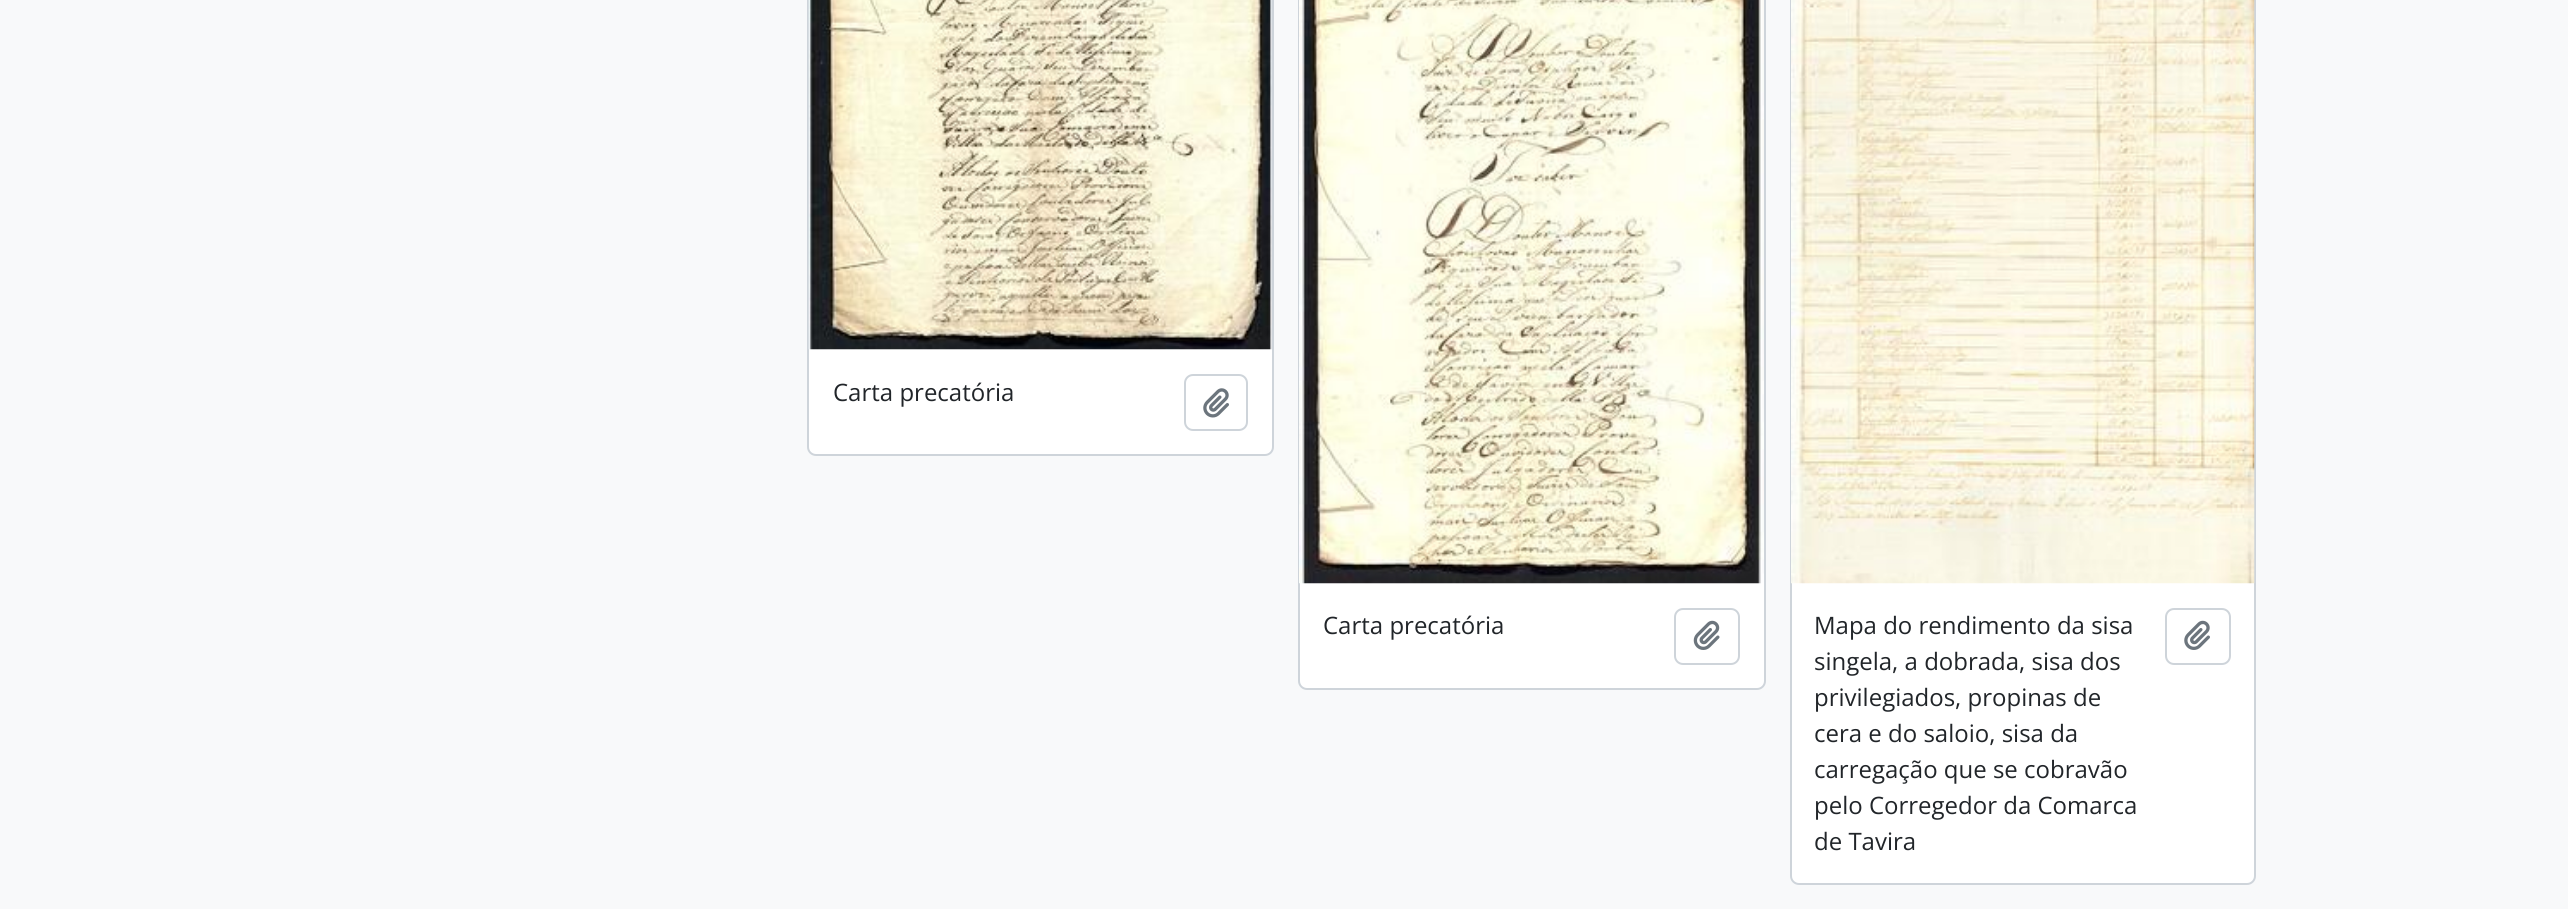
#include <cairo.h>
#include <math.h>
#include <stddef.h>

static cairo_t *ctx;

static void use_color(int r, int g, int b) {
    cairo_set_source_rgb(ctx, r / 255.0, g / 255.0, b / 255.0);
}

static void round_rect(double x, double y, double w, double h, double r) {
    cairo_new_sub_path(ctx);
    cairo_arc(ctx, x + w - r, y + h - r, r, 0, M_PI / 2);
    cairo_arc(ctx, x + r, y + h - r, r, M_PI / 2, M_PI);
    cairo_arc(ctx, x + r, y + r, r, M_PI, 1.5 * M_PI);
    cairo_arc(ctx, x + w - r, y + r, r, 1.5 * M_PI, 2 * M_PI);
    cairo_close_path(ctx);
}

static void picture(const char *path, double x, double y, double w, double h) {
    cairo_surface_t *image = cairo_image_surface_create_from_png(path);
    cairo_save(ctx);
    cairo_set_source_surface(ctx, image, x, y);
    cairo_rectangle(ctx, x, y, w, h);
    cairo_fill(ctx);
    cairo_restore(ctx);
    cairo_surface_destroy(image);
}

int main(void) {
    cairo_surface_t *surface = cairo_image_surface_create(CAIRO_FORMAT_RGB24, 2568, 909);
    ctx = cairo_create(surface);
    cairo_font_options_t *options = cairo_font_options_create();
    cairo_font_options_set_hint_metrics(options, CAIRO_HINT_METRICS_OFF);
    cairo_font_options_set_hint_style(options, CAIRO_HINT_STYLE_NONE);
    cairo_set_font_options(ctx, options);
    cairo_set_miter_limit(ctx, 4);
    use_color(248, 249, 250);
    cairo_paint(ctx);
    use_color(255, 255, 255);
    round_rect(808, -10, 465, 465, 8);
    cairo_fill_preserve(ctx);
    use_color(206, 212, 218);
    cairo_stroke(ctx);
    picture("img1.png", 808, 0, 464, 350);
    cairo_select_font_face(ctx, "Open Sans", CAIRO_FONT_SLANT_NORMAL, CAIRO_FONT_WEIGHT_NORMAL);
    cairo_set_font_size(ctx, 24);
    use_color(33, 37, 41);
    cairo_move_to(ctx, 833, 401);
    cairo_show_text(ctx, "Carta precatória");
    round_rect(1185, 375, 62, 55, 8);
    use_color(206, 212, 218);
    cairo_stroke(ctx);
    picture("img2.png", 1203, 388, 26, 30);
    use_color(255, 255, 255);
    round_rect(1299, -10, 466, 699, 8);
    cairo_fill_preserve(ctx);
    use_color(206, 212, 218);
    cairo_stroke(ctx);
    picture("img3.png", 1299, 0, 465, 584);
    use_color(33, 37, 41);
    cairo_move_to(ctx, 1323, 634);
    cairo_show_text(ctx, "Carta precatória");
    round_rect(1675, 609, 64, 55, 8);
    use_color(206, 212, 218);
    cairo_stroke(ctx);
    picture("img4.png", 1693, 620, 27, 30);
    use_color(255, 255, 255);
    round_rect(1791, -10, 464, 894, 8);
    cairo_fill_preserve(ctx);
    use_color(206, 212, 218);
    cairo_stroke(ctx);
    picture("img5.png", 1791, 0, 464, 584);
    use_color(33, 37, 41);
    cairo_move_to(ctx, 1814, 634);
    cairo_show_text(ctx, "Mapa do rendimento da sisa");
    cairo_move_to(ctx, 1814, 670);
    cairo_show_text(ctx, "singela, a dobrada, sisa dos");
    cairo_move_to(ctx, 1814, 706);
    cairo_show_text(ctx, "privilegiados, propinas de");
    cairo_move_to(ctx, 1814, 742);
    cairo_show_text(ctx, "cera e do saloio, sisa da");
    cairo_move_to(ctx, 1814, 778);
    cairo_show_text(ctx, "carregação que se cobravão");
    cairo_move_to(ctx, 1814, 814);
    cairo_show_text(ctx, "pelo Corregedor da Comarca");
    cairo_move_to(ctx, 1814, 850);
    cairo_show_text(ctx, "de Tavira");
    round_rect(2166, 609, 64, 55, 8);
    use_color(206, 212, 218);
    cairo_stroke(ctx);
    picture("img6.png", 2184, 620, 26, 30);
    cairo_surface_write_to_png(surface, "result.png");
    cairo_font_options_destroy(options);
    cairo_destroy(ctx);
    cairo_surface_destroy(surface);
    return 0;
}
